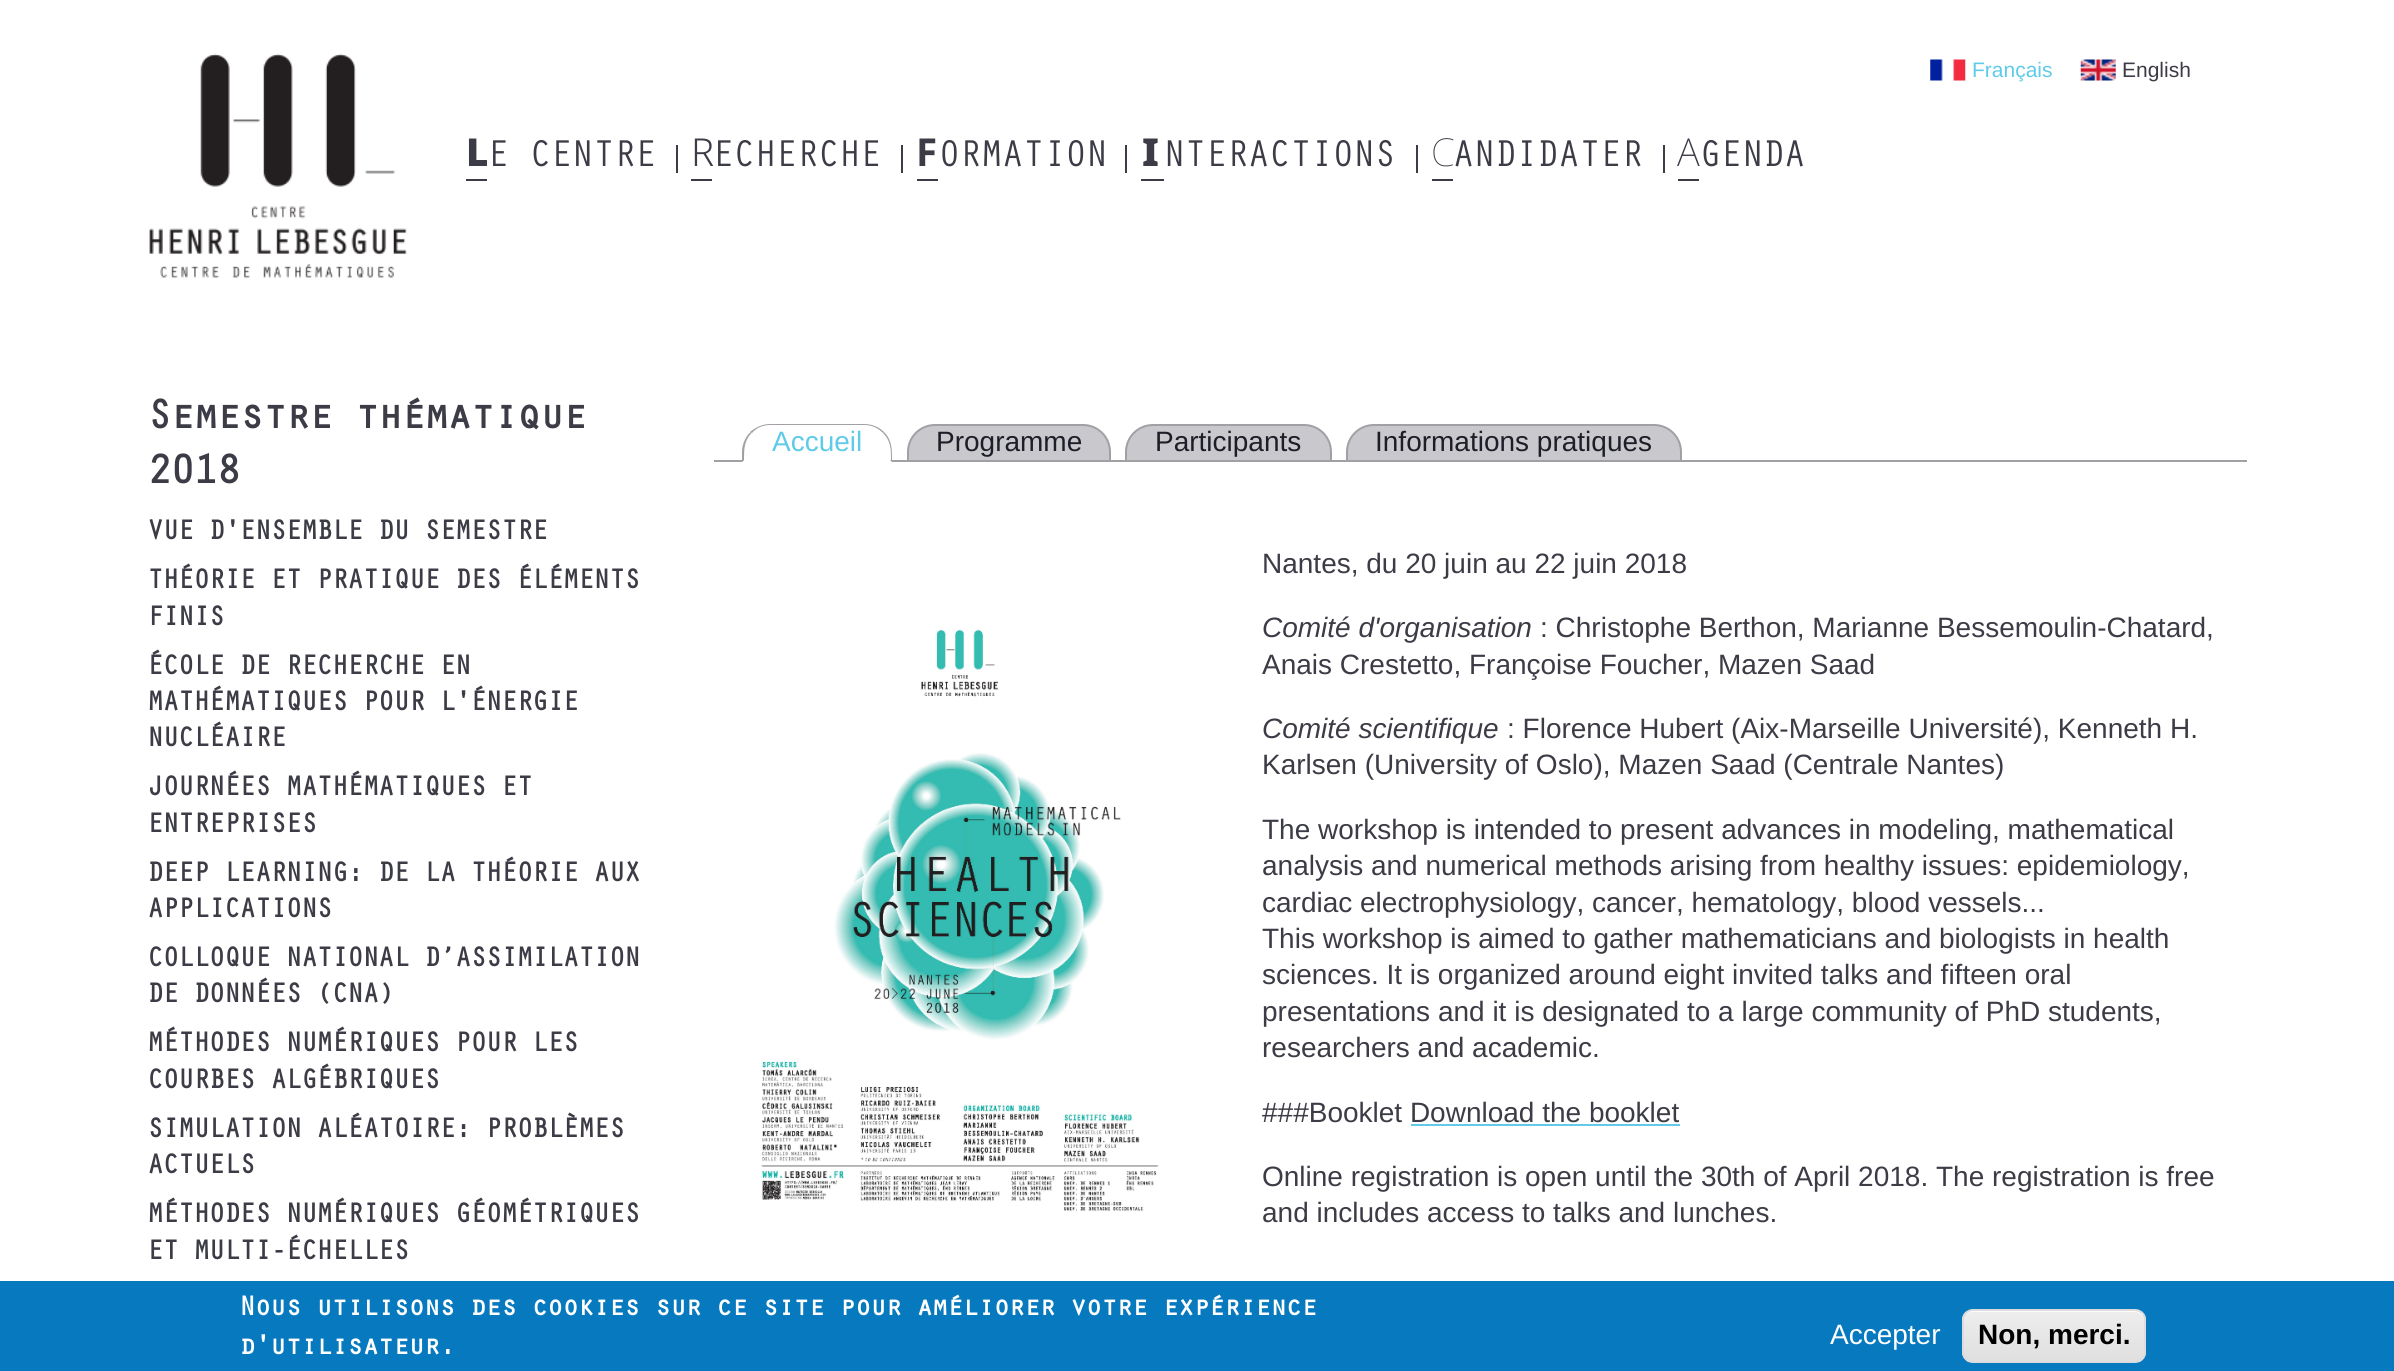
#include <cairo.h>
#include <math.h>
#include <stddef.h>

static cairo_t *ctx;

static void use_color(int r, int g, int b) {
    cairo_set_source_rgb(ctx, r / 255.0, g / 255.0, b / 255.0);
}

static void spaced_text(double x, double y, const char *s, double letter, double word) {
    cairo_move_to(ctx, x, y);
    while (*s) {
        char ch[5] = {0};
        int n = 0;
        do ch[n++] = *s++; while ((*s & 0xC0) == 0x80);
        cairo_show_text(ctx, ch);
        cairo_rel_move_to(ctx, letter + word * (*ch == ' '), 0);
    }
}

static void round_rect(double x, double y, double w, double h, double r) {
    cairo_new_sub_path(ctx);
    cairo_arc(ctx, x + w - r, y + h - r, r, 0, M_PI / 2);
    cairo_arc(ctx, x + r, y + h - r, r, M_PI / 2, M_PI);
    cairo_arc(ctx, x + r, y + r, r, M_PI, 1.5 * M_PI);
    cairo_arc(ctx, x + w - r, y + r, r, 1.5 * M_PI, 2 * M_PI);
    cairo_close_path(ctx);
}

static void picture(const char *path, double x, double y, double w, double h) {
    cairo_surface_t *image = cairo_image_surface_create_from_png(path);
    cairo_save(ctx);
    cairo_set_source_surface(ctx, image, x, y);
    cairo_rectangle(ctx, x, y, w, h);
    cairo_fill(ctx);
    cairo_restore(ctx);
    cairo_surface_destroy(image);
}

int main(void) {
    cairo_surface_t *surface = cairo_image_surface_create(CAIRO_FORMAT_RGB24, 2394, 1371);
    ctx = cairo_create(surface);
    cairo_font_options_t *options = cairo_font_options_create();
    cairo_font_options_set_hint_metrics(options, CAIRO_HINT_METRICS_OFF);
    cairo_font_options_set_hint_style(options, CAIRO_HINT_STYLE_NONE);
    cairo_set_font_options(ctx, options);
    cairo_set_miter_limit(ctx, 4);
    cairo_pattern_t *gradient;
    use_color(255, 255, 255);
    cairo_paint(ctx);
    picture("img1.png", 149, 53, 258, 225);
    picture("img2.png", 1930, 59, 36, 22);
    cairo_select_font_face(ctx, "Liberation Sans", CAIRO_FONT_SLANT_NORMAL, CAIRO_FONT_WEIGHT_NORMAL);
    cairo_set_font_size(ctx, 21);
    use_color(95, 203, 232);
    cairo_move_to(ctx, 1972, 77);
    cairo_show_text(ctx, "Français");
    picture("img3.png", 2080, 59, 36, 22);
    use_color(60, 60, 70);
    cairo_move_to(ctx, 2122, 77);
    cairo_show_text(ctx, "English");
    cairo_select_font_face(ctx, "Noto Sans Black", CAIRO_FONT_SLANT_NORMAL, CAIRO_FONT_WEIGHT_NORMAL);
    cairo_set_font_size(ctx, 38.5);
    spaced_text(466, 166, "L", -2, 0);
    cairo_rectangle(ctx, 466, 179, 21, 2);
    cairo_fill(ctx);
    cairo_select_font_face(ctx, "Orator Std", CAIRO_FONT_SLANT_NORMAL, CAIRO_FONT_WEIGHT_NORMAL);
    spaced_text(487, 166, "E CENTRE", -2, 0);
    cairo_rectangle(ctx, 676, 145, 2, 28);
    cairo_fill(ctx);
    cairo_select_font_face(ctx, "Noto Sans Light", CAIRO_FONT_SLANT_NORMAL, CAIRO_FONT_WEIGHT_NORMAL);
    spaced_text(691, 166, "R", -2, 0);
    cairo_rectangle(ctx, 691, 179, 21, 2);
    cairo_fill(ctx);
    cairo_select_font_face(ctx, "Orator Std", CAIRO_FONT_SLANT_NORMAL, CAIRO_FONT_WEIGHT_NORMAL);
    spaced_text(712, 166, "ECHERCHE", -2, 0);
    cairo_rectangle(ctx, 901, 145, 2, 28);
    cairo_fill(ctx);
    cairo_select_font_face(ctx, "Noto Sans", CAIRO_FONT_SLANT_NORMAL, CAIRO_FONT_WEIGHT_BOLD);
    spaced_text(916, 166, "F", -2, 0);
    cairo_rectangle(ctx, 917, 179, 21, 2);
    cairo_fill(ctx);
    cairo_select_font_face(ctx, "Orator Std", CAIRO_FONT_SLANT_NORMAL, CAIRO_FONT_WEIGHT_NORMAL);
    spaced_text(938, 166, "ORMATION", -2, 0);
    cairo_rectangle(ctx, 1125, 145, 2, 28);
    cairo_fill(ctx);
    cairo_select_font_face(ctx, "Noto Sans Black", CAIRO_FONT_SLANT_NORMAL, CAIRO_FONT_WEIGHT_NORMAL);
    spaced_text(1142, 166, "I", -2, 0);
    cairo_rectangle(ctx, 1141, 179, 23, 2);
    cairo_fill(ctx);
    cairo_select_font_face(ctx, "Orator Std", CAIRO_FONT_SLANT_NORMAL, CAIRO_FONT_WEIGHT_NORMAL);
    spaced_text(1163, 166, "NTERACTIONS", -2, 0);
    cairo_rectangle(ctx, 1416, 145, 2, 28);
    cairo_fill(ctx);
    cairo_select_font_face(ctx, "Noto Sans Thin", CAIRO_FONT_SLANT_NORMAL, CAIRO_FONT_WEIGHT_NORMAL);
    spaced_text(1431, 166, "C", -2, 0);
    cairo_rectangle(ctx, 1432, 179, 21, 2);
    cairo_fill(ctx);
    cairo_select_font_face(ctx, "Orator Std", CAIRO_FONT_SLANT_NORMAL, CAIRO_FONT_WEIGHT_NORMAL);
    spaced_text(1452, 166, "ANDIDATER", -2, 0);
    cairo_rectangle(ctx, 1663, 145, 2, 28);
    cairo_fill(ctx);
    cairo_select_font_face(ctx, "Noto Sans ExtraLight", CAIRO_FONT_SLANT_NORMAL, CAIRO_FONT_WEIGHT_NORMAL);
    spaced_text(1677, 166, "A", -2, 0);
    cairo_rectangle(ctx, 1678, 179, 21, 2);
    cairo_fill(ctx);
    cairo_select_font_face(ctx, "Orator Std", CAIRO_FONT_SLANT_NORMAL, CAIRO_FONT_WEIGHT_NORMAL);
    spaced_text(1699, 166, "GENDA", -2, 0);
    cairo_select_font_face(ctx, "Orator Std", CAIRO_FONT_SLANT_NORMAL, CAIRO_FONT_WEIGHT_BOLD);
    cairo_set_font_size(ctx, 42);
    spaced_text(147, 428, "Semestre thématique", -2.1, 0);
    spaced_text(147, 483, "2018", -2.1, 0);
    cairo_set_font_size(ctx, 28);
    spaced_text(147, 539, "VUE D'ENSEMBLE DU SEMESTRE", -1.4, 0);
    spaced_text(147, 588, "THÉORIE ET PRATIQUE DES ÉLÉMENTS", -1.4, 0);
    spaced_text(147, 625, "FINIS", -1.4, 0);
    spaced_text(147, 674, "ÉCOLE DE RECHERCHE EN", -1.4, 0);
    spaced_text(147, 710, "MATHÉMATIQUES POUR L'ÉNERGIE", -1.4, 0);
    spaced_text(147, 746, "NUCLÉAIRE", -1.4, 0);
    spaced_text(147, 795, "JOURNÉES MATHÉMATIQUES ET", -1.4, 0);
    spaced_text(147, 832, "ENTREPRISES", -1.4, 0);
    spaced_text(147, 881, "DEEP LEARNING: DE LA THÉORIE AUX", -1.4, 0);
    spaced_text(147, 917, "APPLICATIONS", -1.4, 0);
    spaced_text(147, 966, "COLLOQUE NATIONAL D’ASSIMILATION", -1.4, 0);
    spaced_text(147, 1002, "DE DONNÉES (CNA)", -1.4, 0);
    spaced_text(147, 1051, "MÉTHODES NUMÉRIQUES POUR LES", -1.4, 0);
    spaced_text(147, 1088, "COURBES ALGÉBRIQUES", -1.4, 0);
    spaced_text(147, 1137, "SIMULATION ALÉATOIRE: PROBLÈMES", -1.4, 0);
    spaced_text(147, 1173, "ACTUELS", -1.4, 0);
    spaced_text(147, 1222, "MÉTHODES NUMÉRIQUES GÉOMÉTRIQUES", -1.4, 0);
    spaced_text(147, 1259, "ET MULTI-ÉCHELLES", -1.4, 0);
    use_color(160, 160, 165);
    cairo_rectangle(ctx, 714, 460, 1533, 2);
    cairo_fill(ctx);
    cairo_new_path(ctx);
    cairo_move_to(ctx, 770, 424);
    cairo_curve_to(ctx, 763, 424, 756, 427, 750, 432);
    cairo_line_to(ctx, 752, 433);
    cairo_curve_to(ctx, 756, 428, 763, 425, 770, 425);
    cairo_line_to(ctx, 864, 425);
    cairo_curve_to(ctx, 872, 425, 878, 428, 883, 433);
    cairo_line_to(ctx, 884, 432);
    cairo_curve_to(ctx, 879, 427, 872, 424, 864, 424);
    cairo_close_path(ctx);
    cairo_fill(ctx);
    cairo_new_path(ctx);
    cairo_move_to(ctx, 892, 461.5);
    cairo_curve_to(ctx, 892, 450.5, 892.5, 440.5, 884, 432);
    cairo_line_to(ctx, 883, 433);
    cairo_curve_to(ctx, 891, 441, 891, 449.5, 891, 460);
    cairo_line_to(ctx, 890.5, 460);
    cairo_close_path(ctx);
    cairo_fill(ctx);
    use_color(255, 255, 255);
    cairo_new_path(ctx);
    cairo_move_to(ctx, 892, 462);
    cairo_line_to(ctx, 890, 460);
    cairo_line_to(ctx, 744, 460);
    cairo_line_to(ctx, 742, 462);
    cairo_close_path(ctx);
    cairo_fill(ctx);
    use_color(160, 160, 165);
    cairo_new_path(ctx);
    cairo_move_to(ctx, 742, 462);
    cairo_line_to(ctx, 744, 460);
    cairo_curve_to(ctx, 744, 449.5, 744, 441, 751.5, 433);
    cairo_line_to(ctx, 750.5, 432);
    cairo_curve_to(ctx, 745.5, 437, 742, 444, 742, 452);
    cairo_close_path(ctx);
    cairo_fill(ctx);
    cairo_select_font_face(ctx, "Liberation Sans", CAIRO_FONT_SLANT_NORMAL, CAIRO_FONT_WEIGHT_NORMAL);
    use_color(95, 203, 232);
    cairo_move_to(ctx, 772, 451);
    cairo_show_text(ctx, "Accueil");
    use_color(200, 200, 205);
    cairo_new_path(ctx);
    cairo_move_to(ctx, 935, 425);
    cairo_line_to(ctx, 1083, 425);
    cairo_curve_to(ctx, 1098, 425, 1110, 437, 1110, 452);
    cairo_line_to(ctx, 1110, 461);
    cairo_line_to(ctx, 908, 461);
    cairo_line_to(ctx, 908, 452);
    cairo_curve_to(ctx, 908, 437, 920, 425, 935, 425);
    cairo_close_path(ctx);
    cairo_fill_preserve(ctx);
    use_color(160, 160, 165);
    cairo_stroke(ctx);
    use_color(30, 30, 40);
    cairo_move_to(ctx, 936, 451);
    cairo_show_text(ctx, "Programme");
    use_color(200, 200, 205);
    cairo_new_path(ctx);
    cairo_move_to(ctx, 1153, 425);
    cairo_line_to(ctx, 1304, 425);
    cairo_curve_to(ctx, 1319, 425, 1331, 437, 1331, 452);
    cairo_line_to(ctx, 1331, 461);
    cairo_line_to(ctx, 1126, 461);
    cairo_line_to(ctx, 1126, 452);
    cairo_curve_to(ctx, 1126, 437, 1138, 425, 1153, 425);
    cairo_close_path(ctx);
    cairo_fill_preserve(ctx);
    use_color(160, 160, 165);
    cairo_stroke(ctx);
    use_color(30, 30, 40);
    cairo_move_to(ctx, 1155, 451);
    cairo_show_text(ctx, "Participants");
    use_color(200, 200, 205);
    cairo_new_path(ctx);
    cairo_move_to(ctx, 1374, 425);
    cairo_line_to(ctx, 1654, 425);
    cairo_curve_to(ctx, 1669, 425, 1681, 437, 1681, 452);
    cairo_line_to(ctx, 1681, 461);
    cairo_line_to(ctx, 1347, 461);
    cairo_line_to(ctx, 1347, 452);
    cairo_curve_to(ctx, 1347, 437, 1359, 425, 1374, 425);
    cairo_close_path(ctx);
    cairo_fill_preserve(ctx);
    use_color(160, 160, 165);
    cairo_stroke(ctx);
    use_color(30, 30, 40);
    cairo_move_to(ctx, 1375, 451);
    cairo_show_text(ctx, "Informations pratiques");
    picture("img4.png", 761, 629, 398, 583);
    use_color(60, 60, 70);
    cairo_move_to(ctx, 1262, 573);
    cairo_show_text(ctx, "Nantes, du 20 juin au 22 juin 2018");
    cairo_select_font_face(ctx, "Liberation Sans", CAIRO_FONT_SLANT_ITALIC, CAIRO_FONT_WEIGHT_NORMAL);
    cairo_move_to(ctx, 1262, 637);
    cairo_show_text(ctx, "Comité d'organisation");
    cairo_select_font_face(ctx, "Liberation Sans", CAIRO_FONT_SLANT_NORMAL, CAIRO_FONT_WEIGHT_NORMAL);
    cairo_move_to(ctx, 1540, 637);
    cairo_show_text(ctx, ": Christophe Berthon, Marianne Bessemoulin-Chatard,");
    cairo_move_to(ctx, 1262, 674);
    cairo_show_text(ctx, "Anais Crestetto, Françoise Foucher, Mazen Saad");
    cairo_select_font_face(ctx, "Liberation Sans", CAIRO_FONT_SLANT_ITALIC, CAIRO_FONT_WEIGHT_NORMAL);
    cairo_move_to(ctx, 1262, 738);
    cairo_show_text(ctx, "Comité scientifique");
    cairo_select_font_face(ctx, "Liberation Sans", CAIRO_FONT_SLANT_NORMAL, CAIRO_FONT_WEIGHT_NORMAL);
    cairo_move_to(ctx, 1507, 738);
    cairo_show_text(ctx, ": Florence Hubert (Aix-Marseille Université), Kenneth H.");
    cairo_move_to(ctx, 1262, 774);
    cairo_show_text(ctx, "Karlsen (University of Oslo), Mazen Saad (Centrale Nantes)");
    cairo_move_to(ctx, 1262, 839);
    cairo_show_text(ctx, "The workshop is intended to present advances in modeling, mathematical");
    cairo_move_to(ctx, 1262, 875);
    cairo_show_text(ctx, "analysis and numerical methods arising from healthy issues: epidemiology,");
    cairo_move_to(ctx, 1262, 912);
    cairo_show_text(ctx, "cardiac electrophysiology, cancer, hematology, blood vessels...");
    cairo_move_to(ctx, 1262, 948);
    cairo_show_text(ctx, "This workshop is aimed to gather mathematicians and biologists in health");
    cairo_move_to(ctx, 1262, 984);
    cairo_show_text(ctx, "sciences. It is organized around eight invited talks and fifteen oral");
    cairo_move_to(ctx, 1262, 1021);
    cairo_show_text(ctx, "presentations and it is designated to a large community of PhD students,");
    cairo_move_to(ctx, 1262, 1057);
    cairo_show_text(ctx, "researchers and academic.");
    cairo_move_to(ctx, 1262, 1122);
    cairo_show_text(ctx, "###Booklet Download the booklet");
    use_color(95, 203, 232);
    cairo_rectangle(ctx, 1411, 1124, 269, 2);
    cairo_fill(ctx);
    use_color(60, 60, 70);
    cairo_move_to(ctx, 1262, 1186);
    cairo_show_text(ctx, "Online registration is open until the 30th of April 2018. The registration is free");
    cairo_move_to(ctx, 1262, 1222);
    cairo_show_text(ctx, "and includes access to talks and lunches.");
    use_color(7, 121, 191);
    cairo_rectangle(ctx, 0, 1281, 2394, 90);
    cairo_fill(ctx);
    cairo_select_font_face(ctx, "Orator Std", CAIRO_FONT_SLANT_NORMAL, CAIRO_FONT_WEIGHT_BOLD);
    use_color(255, 255, 255);
    spaced_text(239, 1315, "Nous utilisons des cookies sur ce site pour améliorer votre expérience", -1.4, 0);
    spaced_text(239, 1354, "d'utilisateur.", -1.4, 0);
    cairo_select_font_face(ctx, "Liberation Sans", CAIRO_FONT_SLANT_NORMAL, CAIRO_FONT_WEIGHT_NORMAL);
    cairo_move_to(ctx, 1830, 1344);
    cairo_show_text(ctx, "Accepter");
    cairo_save(ctx);
    round_rect(1962, 1309, 184, 54, 11);
    cairo_clip(ctx);
    gradient = cairo_pattern_create_linear(2054, 1311, 2054, 1362);
    cairo_pattern_add_color_stop_rgba(gradient, 0.05, 0.929, 0.929, 0.929, 1);
    cairo_pattern_add_color_stop_rgba(gradient, 1, 0.875, 0.875, 0.875, 1);
    cairo_set_source(ctx, gradient);
    cairo_pattern_destroy(gradient);
    cairo_rectangle(ctx, 1962, 1311, 184, 51);
    cairo_fill(ctx);
    cairo_restore(ctx);
    cairo_new_path(ctx);
    cairo_move_to(ctx, 1972, 1312);
    cairo_line_to(ctx, 2135, 1312);
    cairo_curve_to(ctx, 2140, 1312, 2144, 1316, 2144, 1321);
    cairo_line_to(ctx, 2144, 1320);
    cairo_curve_to(ctx, 2144, 1315, 2140, 1311, 2135, 1311);
    cairo_line_to(ctx, 1973, 1311);
    cairo_curve_to(ctx, 1968, 1311, 1964, 1315, 1964, 1320);
    cairo_line_to(ctx, 1964, 1321);
    cairo_curve_to(ctx, 1964, 1316, 1967, 1312, 1972, 1312);
    cairo_close_path(ctx);
    cairo_fill(ctx);
    round_rect(1963, 1310, 182, 52, 10);
    use_color(220, 220, 220);
    cairo_stroke(ctx);
    cairo_select_font_face(ctx, "Liberation Sans", CAIRO_FONT_SLANT_NORMAL, CAIRO_FONT_WEIGHT_BOLD);
    use_color(0, 0, 0);
    cairo_move_to(ctx, 1978, 1344);
    cairo_show_text(ctx, "Non, merci.");
    cairo_surface_write_to_png(surface, "result.png");
    cairo_font_options_destroy(options);
    cairo_destroy(ctx);
    cairo_surface_destroy(surface);
    return 0;
}
